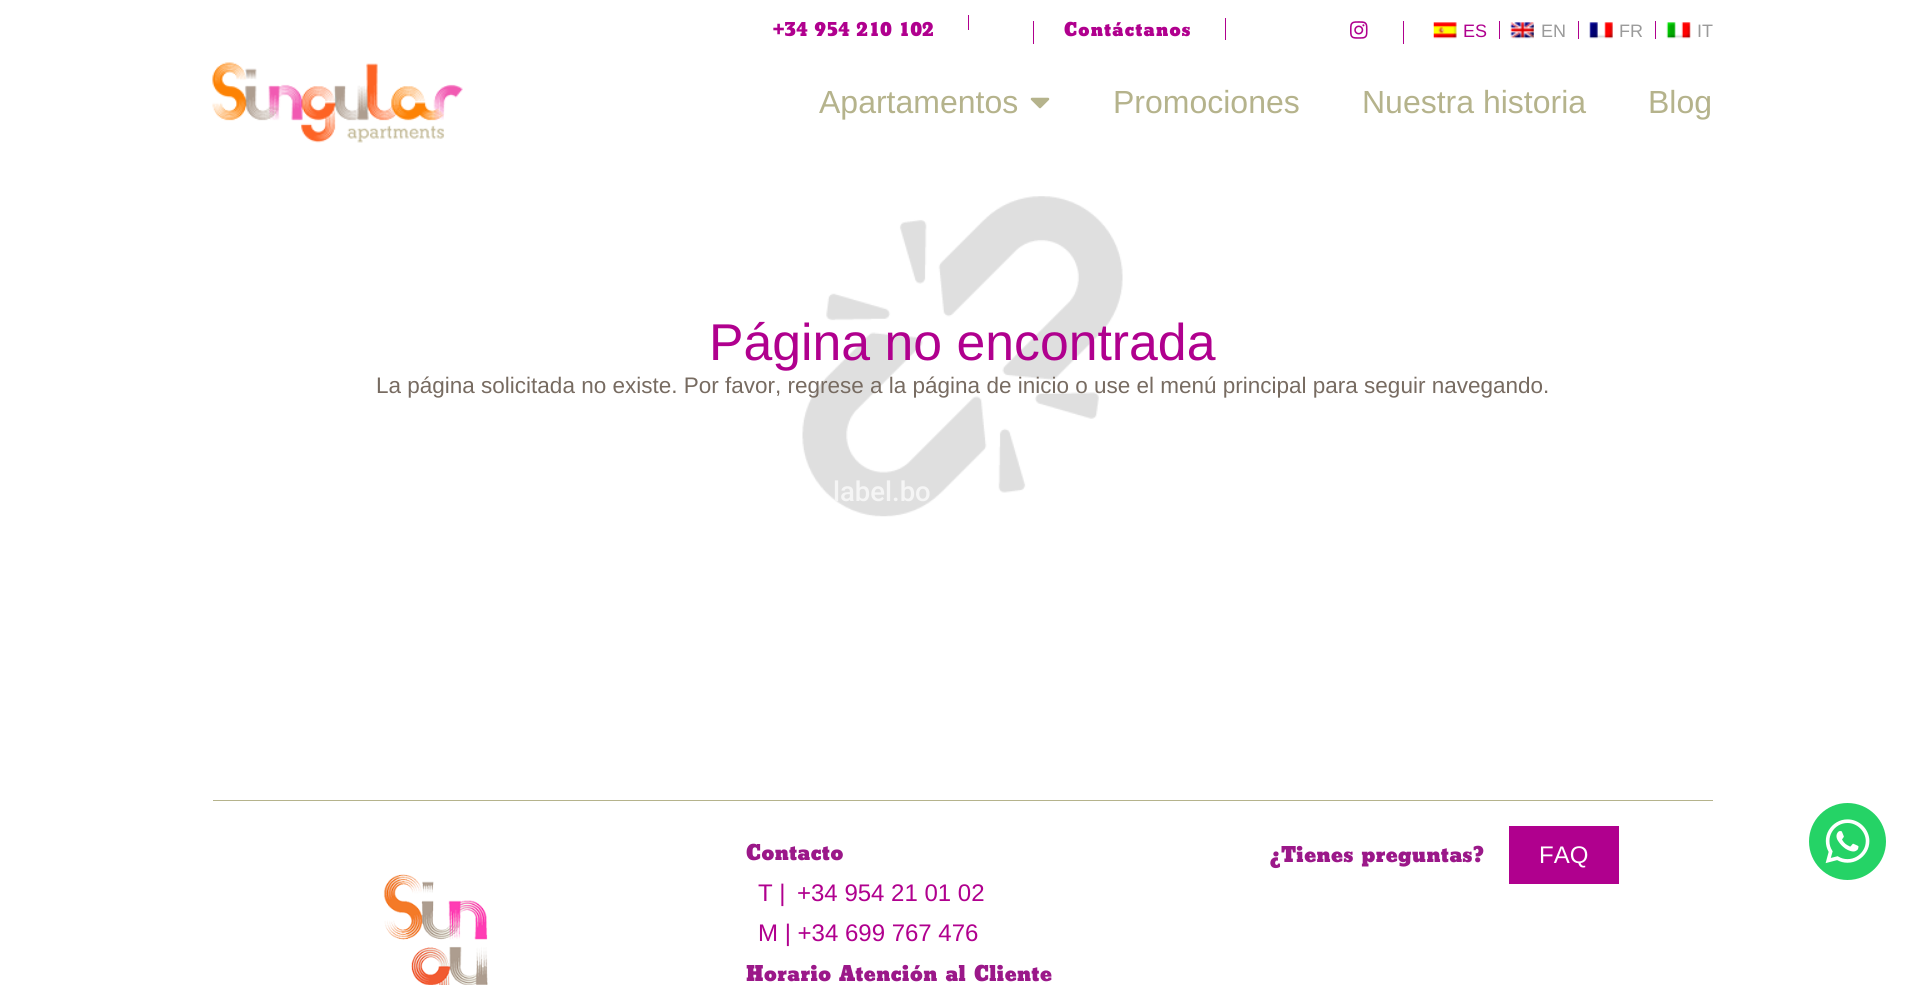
#include <cairo.h>
#include <math.h>
#include <stddef.h>

static cairo_t *ctx;

static void use_color(int r, int g, int b) {
    cairo_set_source_rgb(ctx, r / 255.0, g / 255.0, b / 255.0);
}

static void spaced_text(double x, double y, const char *s, double letter, double word) {
    cairo_move_to(ctx, x, y);
    while (*s) {
        char ch[5] = {0};
        int n = 0;
        do ch[n++] = *s++; while ((*s & 0xC0) == 0x80);
        cairo_show_text(ctx, ch);
        cairo_rel_move_to(ctx, letter + word * (*ch == ' '), 0);
    }
}

static void picture(const char *path, double x, double y, double w, double h) {
    cairo_surface_t *image = cairo_image_surface_create_from_png(path);
    cairo_save(ctx);
    cairo_set_source_surface(ctx, image, x, y);
    cairo_rectangle(ctx, x, y, w, h);
    cairo_fill(ctx);
    cairo_restore(ctx);
    cairo_surface_destroy(image);
}

int main(void) {
    cairo_surface_t *surface = cairo_image_surface_create(CAIRO_FORMAT_RGB24, 1925, 985);
    ctx = cairo_create(surface);
    cairo_font_options_t *options = cairo_font_options_create();
    cairo_font_options_set_hint_metrics(options, CAIRO_HINT_METRICS_OFF);
    cairo_font_options_set_hint_style(options, CAIRO_HINT_STYLE_NONE);
    cairo_set_font_options(ctx, options);
    cairo_set_miter_limit(ctx, 4);
    use_color(255, 255, 255);
    cairo_paint(ctx);
    cairo_select_font_face(ctx, "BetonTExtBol", CAIRO_FONT_SLANT_NORMAL, CAIRO_FONT_WEIGHT_BOLD);
    cairo_set_font_size(ctx, 21);
    use_color(176, 0, 142);
    cairo_move_to(ctx, 773, 36);
    cairo_show_text(ctx, "+34 954 210 102");
    cairo_rectangle(ctx, 968, 15, 1, 15);
    cairo_fill(ctx);
    cairo_rectangle(ctx, 1033, 21, 1, 23);
    cairo_fill(ctx);
    spaced_text(1064, 36, "Contáctanos", 1.25, 0);
    cairo_rectangle(ctx, 1225, 18, 1, 22);
    cairo_fill(ctx);
    picture("img1.png", 1350, 21, 18, 18);
    cairo_rectangle(ctx, 1403, 21, 1, 23);
    cairo_fill(ctx);
    picture("img2.png", 1433, 22, 24, 17);
    cairo_select_font_face(ctx, "Liberation Sans", CAIRO_FONT_SLANT_NORMAL, CAIRO_FONT_WEIGHT_NORMAL);
    cairo_set_font_size(ctx, 18);
    cairo_move_to(ctx, 1463, 37);
    cairo_show_text(ctx, "ES");
    cairo_rectangle(ctx, 1499, 21, 1, 18);
    cairo_fill(ctx);
    picture("img3.png", 1510, 22, 24, 17);
    use_color(154, 154, 154);
    cairo_move_to(ctx, 1541, 37);
    cairo_show_text(ctx, "EN");
    use_color(176, 0, 142);
    cairo_rectangle(ctx, 1578, 21, 1, 18);
    cairo_fill(ctx);
    picture("img4.png", 1589, 22, 24, 17);
    use_color(154, 154, 154);
    cairo_move_to(ctx, 1619, 37);
    cairo_show_text(ctx, "FR");
    use_color(176, 0, 142);
    cairo_rectangle(ctx, 1655, 21, 1, 18);
    cairo_fill(ctx);
    picture("img5.png", 1666, 22, 25, 17);
    use_color(154, 154, 154);
    cairo_move_to(ctx, 1697, 37);
    cairo_show_text(ctx, "IT");
    picture("img6.png", 212, 62, 251, 81);
    cairo_set_font_size(ctx, 32);
    use_color(181, 179, 140);
    cairo_move_to(ctx, 819, 113);
    cairo_show_text(ctx, "Apartamentos");
    picture("img7.png", 1030, 97, 20, 12);
    cairo_move_to(ctx, 1113, 113);
    cairo_show_text(ctx, "Promociones");
    cairo_move_to(ctx, 1362, 113);
    cairo_show_text(ctx, "Nuestra historia");
    cairo_move_to(ctx, 1648, 113);
    cairo_show_text(ctx, "Blog");
    picture("img8.png", 802, 196, 321, 321);
    cairo_set_font_size(ctx, 51.75);
    use_color(176, 0, 142);
    cairo_move_to(ctx, 709, 360);
    cairo_show_text(ctx, "Página no encontrada");
    cairo_set_font_size(ctx, 22.5);
    use_color(119, 107, 97);
    cairo_move_to(ctx, 376, 393);
    cairo_show_text(ctx, "La página solicitada no existe. Por favor, regrese a la página de inicio o use el menú principal para seguir navegando.");
    cairo_select_font_face(ctx, "Roboto Medium", CAIRO_FONT_SLANT_NORMAL, CAIRO_FONT_WEIGHT_NORMAL);
    cairo_set_font_size(ctx, 27.5);
    use_color(245, 245, 245);
    cairo_move_to(ctx, 833, 501);
    cairo_show_text(ctx, "label.bo");
    use_color(181, 179, 140);
    cairo_rectangle(ctx, 213, 800, 1500, 1);
    cairo_fill(ctx);
    cairo_select_font_face(ctx, "BetonTExtBol", CAIRO_FONT_SLANT_NORMAL, CAIRO_FONT_WEIGHT_BOLD);
    cairo_set_font_size(ctx, 24);
    use_color(155, 24, 137);
    spaced_text(746, 860, "Contacto", 0.5, 0);
    cairo_select_font_face(ctx, "Liberation Sans", CAIRO_FONT_SLANT_NORMAL, CAIRO_FONT_WEIGHT_NORMAL);
    use_color(176, 0, 142);
    cairo_move_to(ctx, 758, 901);
    cairo_show_text(ctx, "T |");
    cairo_move_to(ctx, 797, 901);
    cairo_show_text(ctx, "+34 954 21 01 02");
    cairo_move_to(ctx, 758, 941);
    cairo_show_text(ctx, "M | +34 699 767 476");
    cairo_select_font_face(ctx, "BetonTExtBol", CAIRO_FONT_SLANT_NORMAL, CAIRO_FONT_WEIGHT_BOLD);
    use_color(155, 24, 137);
    spaced_text(746, 981, "Horario Atención al Cliente", 0.5, 0);
    spaced_text(1270, 862, "¿Tienes preguntas?", 0.5, 0);
    use_color(176, 0, 142);
    cairo_rectangle(ctx, 1509, 826, 110, 58);
    cairo_fill(ctx);
    cairo_select_font_face(ctx, "Liberation Sans", CAIRO_FONT_SLANT_NORMAL, CAIRO_FONT_WEIGHT_NORMAL);
    use_color(255, 255, 255);
    cairo_move_to(ctx, 1539, 863);
    cairo_show_text(ctx, "FAQ");
    picture("img9.png", 383, 874, 105, 111);
    use_color(37, 211, 102);
    cairo_arc(ctx, 1847.5, 841.5, 38.5, 0, 2 * M_PI);
    cairo_fill(ctx);
    picture("img10.png", 1825, 819, 45, 45);
    cairo_surface_write_to_png(surface, "result.png");
    cairo_font_options_destroy(options);
    cairo_destroy(ctx);
    cairo_surface_destroy(surface);
    return 0;
}
